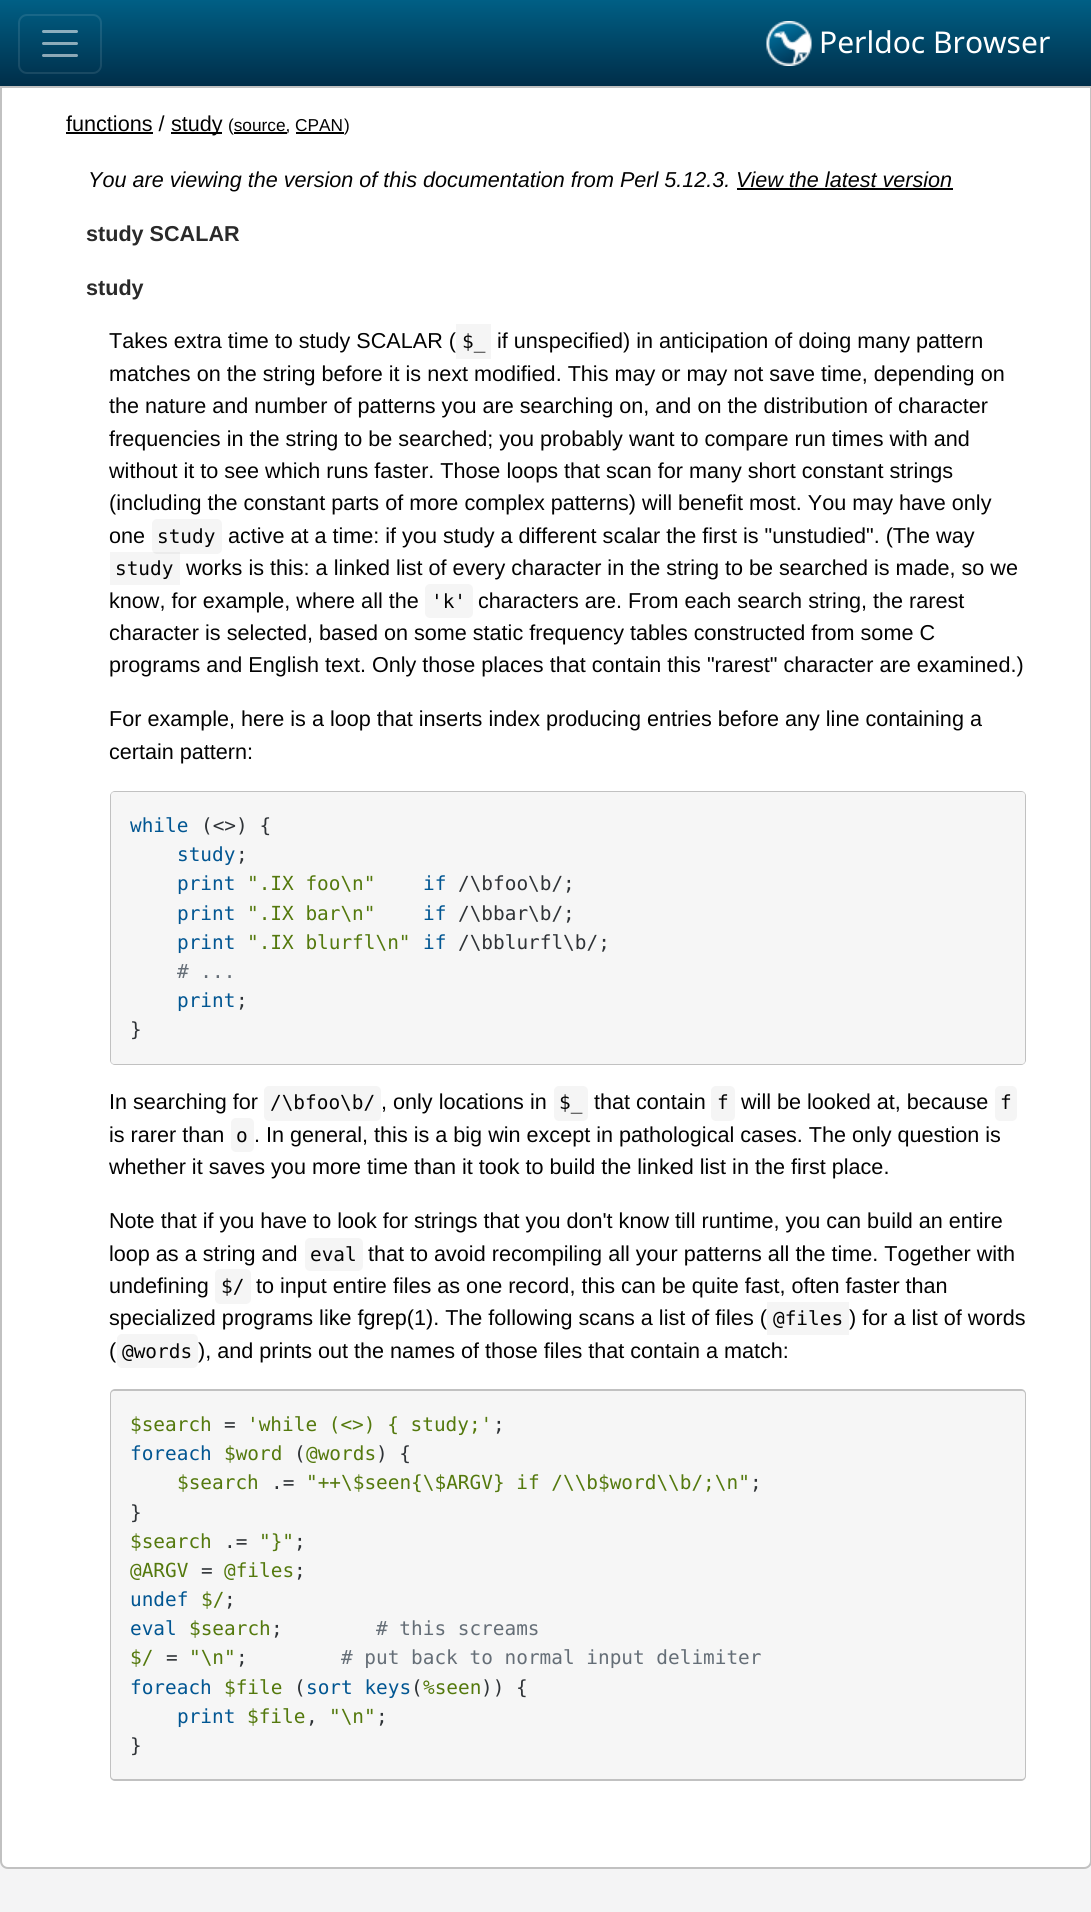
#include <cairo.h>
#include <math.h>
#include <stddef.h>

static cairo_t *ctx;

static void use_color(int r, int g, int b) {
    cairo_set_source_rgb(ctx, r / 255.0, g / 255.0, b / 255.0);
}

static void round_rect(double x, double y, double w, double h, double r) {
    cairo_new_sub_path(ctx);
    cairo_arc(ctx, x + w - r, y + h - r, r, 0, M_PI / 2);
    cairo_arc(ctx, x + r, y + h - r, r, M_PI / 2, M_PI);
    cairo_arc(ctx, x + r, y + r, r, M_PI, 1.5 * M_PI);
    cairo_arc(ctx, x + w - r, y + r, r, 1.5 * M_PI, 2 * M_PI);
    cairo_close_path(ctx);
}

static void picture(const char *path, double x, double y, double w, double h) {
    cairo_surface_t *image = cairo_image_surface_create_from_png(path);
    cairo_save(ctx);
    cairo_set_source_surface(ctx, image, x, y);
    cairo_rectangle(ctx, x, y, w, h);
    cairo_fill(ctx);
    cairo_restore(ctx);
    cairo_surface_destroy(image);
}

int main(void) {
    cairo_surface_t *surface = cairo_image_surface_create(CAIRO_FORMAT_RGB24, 1091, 1912);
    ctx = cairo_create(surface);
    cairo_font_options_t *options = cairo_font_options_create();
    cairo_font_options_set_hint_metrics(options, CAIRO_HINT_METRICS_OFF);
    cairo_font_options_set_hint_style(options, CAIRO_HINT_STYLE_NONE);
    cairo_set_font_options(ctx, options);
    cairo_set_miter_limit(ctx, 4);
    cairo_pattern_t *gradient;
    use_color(244, 244, 245);
    cairo_paint(ctx);
    gradient = cairo_pattern_create_linear(546, 0, 546, 86);
    cairo_pattern_add_color_stop_rgba(gradient, 0, 0, 0.373, 0.522, 1);
    cairo_pattern_add_color_stop_rgba(gradient, 1, 0, 0.18, 0.286, 1);
    cairo_set_source(ctx, gradient);
    cairo_pattern_destroy(gradient);
    cairo_rectangle(ctx, 0, 0, 1091, 86);
    cairo_fill(ctx);
    round_rect(19, 15, 82, 58, 8);
    cairo_set_source_rgba(ctx, 1, 1, 1, 0.1);
    cairo_stroke(ctx);
    cairo_new_path(ctx);
    cairo_move_to(ctx, 43.5, 31.5);
    cairo_line_to(ctx, 76.5, 31.5);
    cairo_move_to(ctx, 43.5, 43.5);
    cairo_line_to(ctx, 76.5, 43.5);
    cairo_move_to(ctx, 43.5, 55.5);
    cairo_line_to(ctx, 76.5, 55.5);
    cairo_set_source_rgba(ctx, 1, 1, 1, 0.55);
    cairo_set_line_width(ctx, 3);
    cairo_set_line_cap(ctx, CAIRO_LINE_CAP_ROUND);
    cairo_stroke(ctx);
    picture("img1.png", 766, 21, 46, 45);
    cairo_select_font_face(ctx, "Noto Sans", CAIRO_FONT_SLANT_NORMAL, CAIRO_FONT_WEIGHT_NORMAL);
    cairo_set_font_size(ctx, 30);
    use_color(255, 255, 255);
    cairo_move_to(ctx, 819, 53);
    cairo_show_text(ctx, "Perldoc Browser");
    cairo_new_path(ctx);
    cairo_move_to(ctx, 1, 87);
    cairo_line_to(ctx, 1091, 87);
    cairo_line_to(ctx, 1091, 1861);
    cairo_curve_to(ctx, 1091, 1865, 1088, 1868, 1084, 1868);
    cairo_line_to(ctx, 8, 1868);
    cairo_curve_to(ctx, 4, 1868, 1, 1865, 1, 1861);
    cairo_close_path(ctx);
    cairo_fill_preserve(ctx);
    use_color(193, 193, 193);
    cairo_set_line_width(ctx, 2);
    cairo_set_line_cap(ctx, CAIRO_LINE_CAP_BUTT);
    cairo_stroke(ctx);
    cairo_select_font_face(ctx, "Liberation Sans", CAIRO_FONT_SLANT_NORMAL, CAIRO_FONT_WEIGHT_NORMAL);
    cairo_set_font_size(ctx, 21.6);
    use_color(2, 2, 2);
    cairo_move_to(ctx, 66, 131);
    cairo_show_text(ctx, "functions /");
    cairo_rectangle(ctx, 66, 132, 87, 2);
    cairo_fill(ctx);
    cairo_rectangle(ctx, 171, 132, 51, 2);
    cairo_fill(ctx);
    cairo_move_to(ctx, 171, 131);
    cairo_show_text(ctx, "study");
    cairo_set_font_size(ctx, 17.25);
    cairo_move_to(ctx, 228, 131);
    cairo_show_text(ctx, "(source, CPAN");
    cairo_rectangle(ctx, 234, 132, 53, 2);
    cairo_fill(ctx);
    cairo_rectangle(ctx, 296, 132, 48, 2);
    cairo_fill(ctx);
    cairo_move_to(ctx, 344, 131);
    cairo_show_text(ctx, ")");
    cairo_select_font_face(ctx, "Liberation Sans", CAIRO_FONT_SLANT_ITALIC, CAIRO_FONT_WEIGHT_NORMAL);
    cairo_set_font_size(ctx, 21.6);
    cairo_move_to(ctx, 88, 187);
    cairo_show_text(ctx, "You are viewing the version of this documentation from Perl 5.12.3.");
    cairo_move_to(ctx, 736, 187);
    cairo_show_text(ctx, "View the latest version");
    cairo_rectangle(ctx, 737, 188, 216, 2);
    cairo_fill(ctx);
    cairo_select_font_face(ctx, "Liberation Sans", CAIRO_FONT_SLANT_NORMAL, CAIRO_FONT_WEIGHT_BOLD);
    use_color(42, 42, 42);
    cairo_move_to(ctx, 86, 241);
    cairo_show_text(ctx, "study SCALAR");
    cairo_move_to(ctx, 86, 295);
    cairo_show_text(ctx, "study");
    cairo_select_font_face(ctx, "Liberation Sans", CAIRO_FONT_SLANT_NORMAL, CAIRO_FONT_WEIGHT_NORMAL);
    use_color(2, 2, 2);
    cairo_move_to(ctx, 109, 348);
    cairo_show_text(ctx, "Takes extra time to study SCALAR (");
    cairo_set_source_rgba(ctx, 0, 0, 0, 0.04);
    cairo_rectangle(ctx, 456, 324, 35, 35);
    cairo_fill(ctx);
    cairo_select_font_face(ctx, "DejaVu Sans Mono", CAIRO_FONT_SLANT_NORMAL, CAIRO_FONT_WEIGHT_NORMAL);
    cairo_set_font_size(ctx, 19.4);
    use_color(2, 2, 2);
    cairo_move_to(ctx, 462, 348);
    cairo_show_text(ctx, "$_");
    cairo_select_font_face(ctx, "Liberation Sans", CAIRO_FONT_SLANT_NORMAL, CAIRO_FONT_WEIGHT_NORMAL);
    cairo_set_font_size(ctx, 21.6);
    cairo_move_to(ctx, 497, 348);
    cairo_show_text(ctx, "if unspecified) in anticipation of doing many pattern");
    cairo_move_to(ctx, 109, 381);
    cairo_show_text(ctx, "matches on the string before it is next modified. This may or may not save time, depending on");
    cairo_move_to(ctx, 109, 413);
    cairo_show_text(ctx, "the nature and number of patterns you are searching on, and on the distribution of character");
    cairo_move_to(ctx, 109, 446);
    cairo_show_text(ctx, "frequencies in the string to be searched; you probably want to compare run times with and");
    cairo_move_to(ctx, 109, 478);
    cairo_show_text(ctx, "without it to see which runs faster. Those loops that scan for many short constant strings");
    cairo_move_to(ctx, 109, 510);
    cairo_show_text(ctx, "(including the constant parts of more complex patterns) will benefit most. You may have only");
    cairo_move_to(ctx, 109, 543);
    cairo_show_text(ctx, "one");
    use_color(245, 245, 245);
    round_rect(152, 519, 70, 35, 5);
    cairo_fill(ctx);
    cairo_select_font_face(ctx, "DejaVu Sans Mono", CAIRO_FONT_SLANT_NORMAL, CAIRO_FONT_WEIGHT_NORMAL);
    cairo_set_font_size(ctx, 19.4);
    use_color(2, 2, 2);
    cairo_move_to(ctx, 157, 543);
    cairo_show_text(ctx, "study");
    cairo_select_font_face(ctx, "Liberation Sans", CAIRO_FONT_SLANT_NORMAL, CAIRO_FONT_WEIGHT_NORMAL);
    cairo_set_font_size(ctx, 21.6);
    cairo_move_to(ctx, 228, 543);
    cairo_show_text(ctx, "active at a time: if you study a different scalar the first is \"unstudied\". (The way");
    cairo_set_source_rgba(ctx, 0, 0, 0, 0.04);
    cairo_rectangle(ctx, 110, 552, 70, 33);
    cairo_fill(ctx);
    cairo_select_font_face(ctx, "DejaVu Sans Mono", CAIRO_FONT_SLANT_NORMAL, CAIRO_FONT_WEIGHT_NORMAL);
    cairo_set_font_size(ctx, 19.4);
    use_color(2, 2, 2);
    cairo_move_to(ctx, 115, 575);
    cairo_show_text(ctx, "study");
    cairo_select_font_face(ctx, "Liberation Sans", CAIRO_FONT_SLANT_NORMAL, CAIRO_FONT_WEIGHT_NORMAL);
    cairo_set_font_size(ctx, 21.6);
    cairo_move_to(ctx, 186, 575);
    cairo_show_text(ctx, "works is this: a linked list of every character in the string to be searched is made, so we");
    cairo_move_to(ctx, 109, 608);
    cairo_show_text(ctx, "know, for example, where all the");
    use_color(245, 245, 245);
    round_rect(425, 584, 48, 34, 5);
    cairo_fill(ctx);
    cairo_select_font_face(ctx, "DejaVu Sans Mono", CAIRO_FONT_SLANT_NORMAL, CAIRO_FONT_WEIGHT_NORMAL);
    cairo_set_font_size(ctx, 19.4);
    use_color(2, 2, 2);
    cairo_move_to(ctx, 431, 608);
    cairo_show_text(ctx, "'k'");
    cairo_select_font_face(ctx, "Liberation Sans", CAIRO_FONT_SLANT_NORMAL, CAIRO_FONT_WEIGHT_NORMAL);
    cairo_set_font_size(ctx, 21.6);
    cairo_move_to(ctx, 478, 608);
    cairo_show_text(ctx, "characters are. From each search string, the rarest");
    cairo_move_to(ctx, 109, 640);
    cairo_show_text(ctx, "character is selected, based on some static frequency tables constructed from some C");
    cairo_move_to(ctx, 109, 672);
    cairo_show_text(ctx, "programs and English text. Only those places that contain this \"rarest\" character are examined.)");
    cairo_move_to(ctx, 109, 726);
    cairo_show_text(ctx, "For example, here is a loop that inserts index producing entries before any line containing a");
    cairo_move_to(ctx, 109, 759);
    cairo_show_text(ctx, "certain pattern:");
    round_rect(111, 792, 914, 272, 4);
    use_color(193, 193, 193);
    cairo_stroke(ctx);
    use_color(246, 246, 246);
    round_rect(111, 792, 914, 272, 3);
    cairo_fill(ctx);
    cairo_select_font_face(ctx, "DejaVu Sans Mono", CAIRO_FONT_SLANT_NORMAL, CAIRO_FONT_WEIGHT_NORMAL);
    cairo_set_font_size(ctx, 19.4);
    use_color(1, 86, 146);
    cairo_move_to(ctx, 130, 832);
    cairo_show_text(ctx, "while");
    use_color(47, 51, 55);
    cairo_move_to(ctx, 201, 832);
    cairo_show_text(ctx, "(<>) {");
    use_color(1, 86, 146);
    cairo_move_to(ctx, 177, 861);
    cairo_show_text(ctx, "study");
    use_color(47, 51, 55);
    cairo_move_to(ctx, 236, 861);
    cairo_show_text(ctx, ";");
    use_color(1, 86, 146);
    cairo_move_to(ctx, 177, 890);
    cairo_show_text(ctx, "print");
    use_color(84, 121, 13);
    cairo_move_to(ctx, 247, 890);
    cairo_show_text(ctx, "\".IX foo\\n\"");
    use_color(1, 86, 146);
    cairo_move_to(ctx, 423, 890);
    cairo_show_text(ctx, "if");
    use_color(47, 51, 55);
    cairo_move_to(ctx, 458, 890);
    cairo_show_text(ctx, "/\\bfoo\\b/;");
    use_color(1, 86, 146);
    cairo_move_to(ctx, 177, 920);
    cairo_show_text(ctx, "print");
    use_color(84, 121, 13);
    cairo_move_to(ctx, 247, 920);
    cairo_show_text(ctx, "\".IX bar\\n\"");
    use_color(1, 86, 146);
    cairo_move_to(ctx, 423, 920);
    cairo_show_text(ctx, "if");
    use_color(47, 51, 55);
    cairo_move_to(ctx, 458, 920);
    cairo_show_text(ctx, "/\\bbar\\b/;");
    use_color(1, 86, 146);
    cairo_move_to(ctx, 177, 949);
    cairo_show_text(ctx, "print");
    use_color(84, 121, 13);
    cairo_move_to(ctx, 247, 949);
    cairo_show_text(ctx, "\".IX blurfl\\n\"");
    use_color(1, 86, 146);
    cairo_move_to(ctx, 423, 949);
    cairo_show_text(ctx, "if");
    use_color(47, 51, 55);
    cairo_move_to(ctx, 458, 949);
    cairo_show_text(ctx, "/\\bblurfl\\b/;");
    use_color(101, 110, 119);
    cairo_move_to(ctx, 177, 978);
    cairo_show_text(ctx, "# ...");
    use_color(1, 86, 146);
    cairo_move_to(ctx, 177, 1007);
    cairo_show_text(ctx, "print");
    use_color(47, 51, 55);
    cairo_move_to(ctx, 236, 1007);
    cairo_show_text(ctx, ";");
    cairo_move_to(ctx, 130, 1036);
    cairo_show_text(ctx, "}");
    cairo_select_font_face(ctx, "Liberation Sans", CAIRO_FONT_SLANT_NORMAL, CAIRO_FONT_WEIGHT_NORMAL);
    cairo_set_font_size(ctx, 21.6);
    use_color(2, 2, 2);
    cairo_move_to(ctx, 109, 1109);
    cairo_show_text(ctx, "In searching for");
    use_color(245, 245, 245);
    round_rect(264, 1086, 117, 35, 5);
    cairo_fill(ctx);
    cairo_select_font_face(ctx, "DejaVu Sans Mono", CAIRO_FONT_SLANT_NORMAL, CAIRO_FONT_WEIGHT_NORMAL);
    cairo_set_font_size(ctx, 19.4);
    use_color(2, 2, 2);
    cairo_move_to(ctx, 270, 1109);
    cairo_show_text(ctx, "/\\bfoo\\b/");
    cairo_select_font_face(ctx, "Liberation Sans", CAIRO_FONT_SLANT_NORMAL, CAIRO_FONT_WEIGHT_NORMAL);
    cairo_set_font_size(ctx, 21.6);
    cairo_move_to(ctx, 381, 1109);
    cairo_show_text(ctx, ", only locations in");
    use_color(245, 245, 245);
    round_rect(554, 1086, 34, 35, 5);
    cairo_fill(ctx);
    cairo_select_font_face(ctx, "DejaVu Sans Mono", CAIRO_FONT_SLANT_NORMAL, CAIRO_FONT_WEIGHT_NORMAL);
    cairo_set_font_size(ctx, 19.4);
    use_color(2, 2, 2);
    cairo_move_to(ctx, 559, 1109);
    cairo_show_text(ctx, "$_");
    cairo_select_font_face(ctx, "Liberation Sans", CAIRO_FONT_SLANT_NORMAL, CAIRO_FONT_WEIGHT_NORMAL);
    cairo_set_font_size(ctx, 21.6);
    cairo_move_to(ctx, 594, 1109);
    cairo_show_text(ctx, "that contain");
    use_color(245, 245, 245);
    round_rect(711, 1086, 24, 35, 5);
    cairo_fill(ctx);
    cairo_select_font_face(ctx, "DejaVu Sans Mono", CAIRO_FONT_SLANT_NORMAL, CAIRO_FONT_WEIGHT_NORMAL);
    cairo_set_font_size(ctx, 19.4);
    use_color(2, 2, 2);
    cairo_move_to(ctx, 717, 1109);
    cairo_show_text(ctx, "f");
    cairo_select_font_face(ctx, "Liberation Sans", CAIRO_FONT_SLANT_NORMAL, CAIRO_FONT_WEIGHT_NORMAL);
    cairo_set_font_size(ctx, 21.6);
    cairo_move_to(ctx, 741, 1109);
    cairo_show_text(ctx, "will be looked at, because");
    use_color(245, 245, 245);
    round_rect(995, 1086, 22, 35, 5);
    cairo_fill(ctx);
    cairo_select_font_face(ctx, "DejaVu Sans Mono", CAIRO_FONT_SLANT_NORMAL, CAIRO_FONT_WEIGHT_NORMAL);
    cairo_set_font_size(ctx, 19.4);
    use_color(2, 2, 2);
    cairo_move_to(ctx, 1000, 1109);
    cairo_show_text(ctx, "f");
    cairo_select_font_face(ctx, "Liberation Sans", CAIRO_FONT_SLANT_NORMAL, CAIRO_FONT_WEIGHT_NORMAL);
    cairo_set_font_size(ctx, 21.6);
    cairo_move_to(ctx, 109, 1142);
    cairo_show_text(ctx, "is rarer than");
    use_color(245, 245, 245);
    round_rect(231, 1118, 23, 34, 5);
    cairo_fill(ctx);
    cairo_select_font_face(ctx, "DejaVu Sans Mono", CAIRO_FONT_SLANT_NORMAL, CAIRO_FONT_WEIGHT_NORMAL);
    cairo_set_font_size(ctx, 19.4);
    use_color(2, 2, 2);
    cairo_move_to(ctx, 236, 1142);
    cairo_show_text(ctx, "o");
    cairo_select_font_face(ctx, "Liberation Sans", CAIRO_FONT_SLANT_NORMAL, CAIRO_FONT_WEIGHT_NORMAL);
    cairo_set_font_size(ctx, 21.6);
    cairo_move_to(ctx, 254, 1142);
    cairo_show_text(ctx, ". In general, this is a big win except in pathological cases. The only question is");
    cairo_move_to(ctx, 109, 1174);
    cairo_show_text(ctx, "whether it saves you more time than it took to build the linked list in the first place.");
    cairo_move_to(ctx, 109, 1228);
    cairo_show_text(ctx, "Note that if you have to look for strings that you don't know till runtime, you can build an entire");
    cairo_move_to(ctx, 109, 1261);
    cairo_show_text(ctx, "loop as a string and");
    use_color(245, 245, 245);
    round_rect(305, 1238, 58, 33, 5);
    cairo_fill(ctx);
    cairo_select_font_face(ctx, "DejaVu Sans Mono", CAIRO_FONT_SLANT_NORMAL, CAIRO_FONT_WEIGHT_NORMAL);
    cairo_set_font_size(ctx, 19.4);
    use_color(2, 2, 2);
    cairo_move_to(ctx, 310, 1261);
    cairo_show_text(ctx, "eval");
    cairo_select_font_face(ctx, "Liberation Sans", CAIRO_FONT_SLANT_NORMAL, CAIRO_FONT_WEIGHT_NORMAL);
    cairo_set_font_size(ctx, 21.6);
    cairo_move_to(ctx, 368, 1261);
    cairo_show_text(ctx, "that to avoid recompiling all your patterns all the time. Together with");
    cairo_move_to(ctx, 109, 1293);
    cairo_show_text(ctx, "undefining");
    use_color(245, 245, 245);
    round_rect(215, 1269, 36, 35, 5);
    cairo_fill(ctx);
    cairo_select_font_face(ctx, "DejaVu Sans Mono", CAIRO_FONT_SLANT_NORMAL, CAIRO_FONT_WEIGHT_NORMAL);
    cairo_set_font_size(ctx, 19.4);
    use_color(2, 2, 2);
    cairo_move_to(ctx, 221, 1293);
    cairo_show_text(ctx, "$/");
    cairo_select_font_face(ctx, "Liberation Sans", CAIRO_FONT_SLANT_NORMAL, CAIRO_FONT_WEIGHT_NORMAL);
    cairo_set_font_size(ctx, 21.6);
    cairo_move_to(ctx, 256, 1293);
    cairo_show_text(ctx, "to input entire files as one record, this can be quite fast, often faster than");
    cairo_move_to(ctx, 109, 1325);
    cairo_show_text(ctx, "specialized programs like fgrep(1). The following scans a list of files (");
    cairo_set_source_rgba(ctx, 0, 0, 0, 0.04);
    cairo_rectangle(ctx, 767, 1302, 82, 33);
    cairo_fill(ctx);
    cairo_select_font_face(ctx, "DejaVu Sans Mono", CAIRO_FONT_SLANT_NORMAL, CAIRO_FONT_WEIGHT_NORMAL);
    cairo_set_font_size(ctx, 19.4);
    use_color(2, 2, 2);
    cairo_move_to(ctx, 773, 1325);
    cairo_show_text(ctx, "@files");
    cairo_select_font_face(ctx, "Liberation Sans", CAIRO_FONT_SLANT_NORMAL, CAIRO_FONT_WEIGHT_NORMAL);
    cairo_set_font_size(ctx, 21.6);
    cairo_move_to(ctx, 849, 1325);
    cairo_show_text(ctx, ") for a list of words");
    cairo_move_to(ctx, 109, 1358);
    cairo_show_text(ctx, "(");
    use_color(245, 245, 245);
    round_rect(117, 1334, 81, 34, 5);
    cairo_fill(ctx);
    cairo_select_font_face(ctx, "DejaVu Sans Mono", CAIRO_FONT_SLANT_NORMAL, CAIRO_FONT_WEIGHT_NORMAL);
    cairo_set_font_size(ctx, 19.4);
    use_color(2, 2, 2);
    cairo_move_to(ctx, 122, 1358);
    cairo_show_text(ctx, "@words");
    cairo_select_font_face(ctx, "Liberation Sans", CAIRO_FONT_SLANT_NORMAL, CAIRO_FONT_WEIGHT_NORMAL);
    cairo_set_font_size(ctx, 21.6);
    cairo_move_to(ctx, 198, 1358);
    cairo_show_text(ctx, "), and prints out the names of those files that contain a match:");
    round_rect(111, 1390, 914, 390, 4);
    use_color(193, 193, 193);
    cairo_stroke(ctx);
    use_color(246, 246, 246);
    round_rect(111, 1391, 914, 388, 3);
    cairo_fill(ctx);
    cairo_select_font_face(ctx, "DejaVu Sans Mono", CAIRO_FONT_SLANT_NORMAL, CAIRO_FONT_WEIGHT_NORMAL);
    cairo_set_font_size(ctx, 19.4);
    use_color(84, 121, 13);
    cairo_move_to(ctx, 130, 1431);
    cairo_show_text(ctx, "$search");
    use_color(47, 51, 55);
    cairo_move_to(ctx, 224, 1431);
    cairo_show_text(ctx, "=");
    use_color(84, 121, 13);
    cairo_move_to(ctx, 247, 1431);
    cairo_show_text(ctx, "'while (<>) { study;'");
    use_color(47, 51, 55);
    cairo_move_to(ctx, 493, 1431);
    cairo_show_text(ctx, ";");
    use_color(1, 86, 146);
    cairo_move_to(ctx, 130, 1460);
    cairo_show_text(ctx, "foreach");
    use_color(84, 121, 13);
    cairo_move_to(ctx, 224, 1460);
    cairo_show_text(ctx, "$word");
    use_color(47, 51, 55);
    cairo_move_to(ctx, 294, 1460);
    cairo_show_text(ctx, "(");
    use_color(84, 121, 13);
    cairo_move_to(ctx, 306, 1460);
    cairo_show_text(ctx, "@words");
    use_color(47, 51, 55);
    cairo_move_to(ctx, 376, 1460);
    cairo_show_text(ctx, ") {");
    use_color(84, 121, 13);
    cairo_move_to(ctx, 177, 1489);
    cairo_show_text(ctx, "$search");
    use_color(47, 51, 55);
    cairo_move_to(ctx, 271, 1489);
    cairo_show_text(ctx, ".=");
    use_color(84, 121, 13);
    cairo_move_to(ctx, 306, 1489);
    cairo_show_text(ctx, "\"++\\$seen{\\$ARGV} if /\\\\b$word\\\\b/;\\n\"");
    use_color(47, 51, 55);
    cairo_move_to(ctx, 750, 1489);
    cairo_show_text(ctx, ";");
    cairo_move_to(ctx, 130, 1519);
    cairo_show_text(ctx, "}");
    use_color(84, 121, 13);
    cairo_move_to(ctx, 130, 1548);
    cairo_show_text(ctx, "$search");
    use_color(47, 51, 55);
    cairo_move_to(ctx, 224, 1548);
    cairo_show_text(ctx, ".=");
    use_color(84, 121, 13);
    cairo_move_to(ctx, 259, 1548);
    cairo_show_text(ctx, "\"}\"");
    use_color(47, 51, 55);
    cairo_move_to(ctx, 294, 1548);
    cairo_show_text(ctx, ";");
    use_color(84, 121, 13);
    cairo_move_to(ctx, 130, 1577);
    cairo_show_text(ctx, "@ARGV");
    use_color(47, 51, 55);
    cairo_move_to(ctx, 201, 1577);
    cairo_show_text(ctx, "=");
    use_color(84, 121, 13);
    cairo_move_to(ctx, 224, 1577);
    cairo_show_text(ctx, "@files");
    use_color(47, 51, 55);
    cairo_move_to(ctx, 294, 1577);
    cairo_show_text(ctx, ";");
    use_color(1, 86, 146);
    cairo_move_to(ctx, 130, 1606);
    cairo_show_text(ctx, "undef");
    use_color(84, 121, 13);
    cairo_move_to(ctx, 201, 1606);
    cairo_show_text(ctx, "$/");
    use_color(47, 51, 55);
    cairo_move_to(ctx, 224, 1606);
    cairo_show_text(ctx, ";");
    use_color(1, 86, 146);
    cairo_move_to(ctx, 130, 1635);
    cairo_show_text(ctx, "eval");
    use_color(84, 121, 13);
    cairo_move_to(ctx, 189, 1635);
    cairo_show_text(ctx, "$search");
    use_color(47, 51, 55);
    cairo_move_to(ctx, 271, 1635);
    cairo_show_text(ctx, ";");
    use_color(101, 110, 119);
    cairo_move_to(ctx, 376, 1635);
    cairo_show_text(ctx, "# this screams");
    use_color(84, 121, 13);
    cairo_move_to(ctx, 130, 1664);
    cairo_show_text(ctx, "$/");
    use_color(47, 51, 55);
    cairo_move_to(ctx, 166, 1664);
    cairo_show_text(ctx, "=");
    use_color(84, 121, 13);
    cairo_move_to(ctx, 189, 1664);
    cairo_show_text(ctx, "\"\\n\"");
    use_color(47, 51, 55);
    cairo_move_to(ctx, 236, 1664);
    cairo_show_text(ctx, ";");
    use_color(101, 110, 119);
    cairo_move_to(ctx, 341, 1664);
    cairo_show_text(ctx, "# put back to normal input delimiter");
    use_color(1, 86, 146);
    cairo_move_to(ctx, 130, 1694);
    cairo_show_text(ctx, "foreach");
    use_color(84, 121, 13);
    cairo_move_to(ctx, 224, 1694);
    cairo_show_text(ctx, "$file");
    use_color(47, 51, 55);
    cairo_move_to(ctx, 294, 1694);
    cairo_show_text(ctx, "(");
    use_color(1, 86, 146);
    cairo_move_to(ctx, 306, 1694);
    cairo_show_text(ctx, "sort keys");
    use_color(47, 51, 55);
    cairo_move_to(ctx, 411, 1694);
    cairo_show_text(ctx, "(");
    use_color(84, 121, 13);
    cairo_move_to(ctx, 423, 1694);
    cairo_show_text(ctx, "%seen");
    use_color(47, 51, 55);
    cairo_move_to(ctx, 481, 1694);
    cairo_show_text(ctx, ")) {");
    use_color(1, 86, 146);
    cairo_move_to(ctx, 177, 1723);
    cairo_show_text(ctx, "print");
    use_color(84, 121, 13);
    cairo_move_to(ctx, 247, 1723);
    cairo_show_text(ctx, "$file");
    use_color(47, 51, 55);
    cairo_move_to(ctx, 306, 1723);
    cairo_show_text(ctx, ",");
    use_color(84, 121, 13);
    cairo_move_to(ctx, 329, 1723);
    cairo_show_text(ctx, "\"\\n\"");
    use_color(47, 51, 55);
    cairo_move_to(ctx, 376, 1723);
    cairo_show_text(ctx, ";");
    cairo_move_to(ctx, 130, 1752);
    cairo_show_text(ctx, "}");
    cairo_surface_write_to_png(surface, "result.png");
    cairo_font_options_destroy(options);
    cairo_destroy(ctx);
    cairo_surface_destroy(surface);
    return 0;
}
